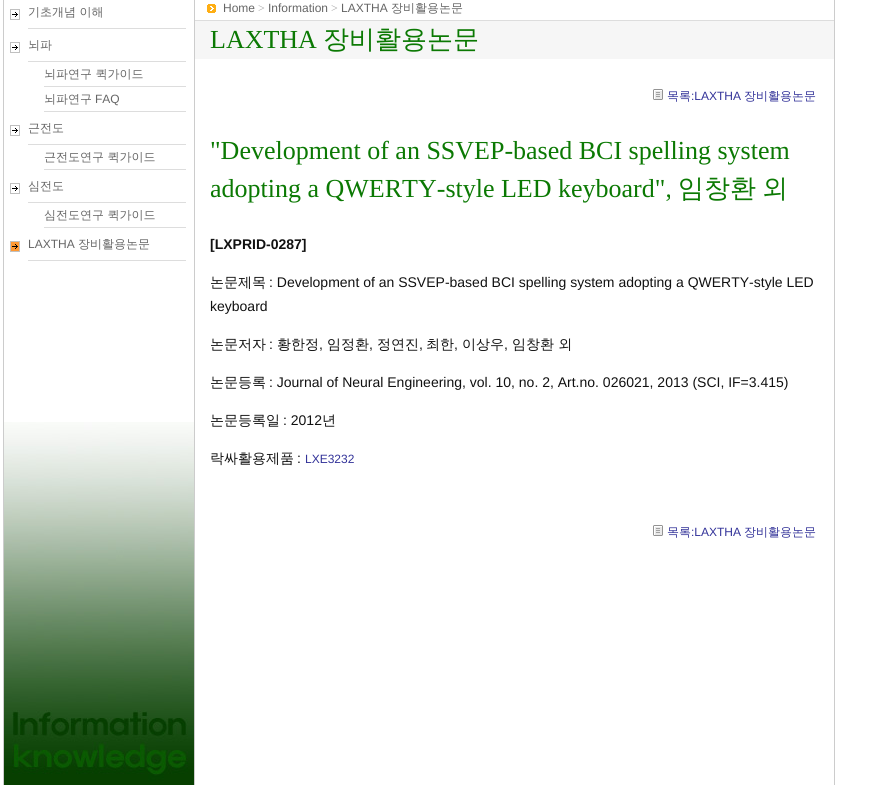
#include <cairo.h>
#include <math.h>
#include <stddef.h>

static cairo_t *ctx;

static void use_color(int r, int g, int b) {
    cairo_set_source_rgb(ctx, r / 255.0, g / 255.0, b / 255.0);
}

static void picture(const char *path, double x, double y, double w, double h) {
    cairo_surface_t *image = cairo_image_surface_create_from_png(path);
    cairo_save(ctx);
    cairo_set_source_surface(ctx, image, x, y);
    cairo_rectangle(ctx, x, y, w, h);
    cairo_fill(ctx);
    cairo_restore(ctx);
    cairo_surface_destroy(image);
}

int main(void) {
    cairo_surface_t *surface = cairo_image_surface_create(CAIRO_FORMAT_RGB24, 888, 785);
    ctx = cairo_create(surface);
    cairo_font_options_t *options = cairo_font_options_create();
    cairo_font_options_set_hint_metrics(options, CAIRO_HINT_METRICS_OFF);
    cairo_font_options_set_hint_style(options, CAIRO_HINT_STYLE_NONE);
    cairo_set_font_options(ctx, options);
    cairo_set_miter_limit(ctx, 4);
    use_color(255, 255, 255);
    cairo_paint(ctx);
    use_color(204, 204, 204);
    cairo_rectangle(ctx, 3, 0, 1, 785);
    cairo_fill(ctx);
    picture("img1.png", 10, 9, 10, 11);
    cairo_select_font_face(ctx, "WenQuanYi Zen Hei Medium", CAIRO_FONT_SLANT_NORMAL, CAIRO_FONT_WEIGHT_NORMAL);
    cairo_set_font_size(ctx, 12);
    use_color(102, 102, 102);
    cairo_move_to(ctx, 28, 16);
    cairo_show_text(ctx, "기초개념 이해");
    use_color(221, 221, 221);
    cairo_rectangle(ctx, 28, 28, 158, 1);
    cairo_fill(ctx);
    picture("img1.png", 10, 42, 10, 11);
    use_color(102, 102, 102);
    cairo_move_to(ctx, 28, 49);
    cairo_show_text(ctx, "뇌파");
    use_color(221, 221, 221);
    cairo_rectangle(ctx, 28, 61, 158, 1);
    cairo_fill(ctx);
    use_color(102, 102, 102);
    cairo_move_to(ctx, 44, 78);
    cairo_show_text(ctx, "뇌파연구 퀵가이드");
    use_color(221, 221, 221);
    cairo_rectangle(ctx, 44, 86, 142, 1);
    cairo_fill(ctx);
    use_color(102, 102, 102);
    cairo_move_to(ctx, 44, 103);
    cairo_show_text(ctx, "뇌파연구");
    cairo_select_font_face(ctx, "Liberation Sans", CAIRO_FONT_SLANT_NORMAL, CAIRO_FONT_WEIGHT_NORMAL);
    cairo_move_to(ctx, 95, 103);
    cairo_show_text(ctx, "FAQ");
    use_color(221, 221, 221);
    cairo_rectangle(ctx, 44, 111, 142, 1);
    cairo_fill(ctx);
    picture("img1.png", 10, 125, 10, 11);
    cairo_select_font_face(ctx, "WenQuanYi Zen Hei Medium", CAIRO_FONT_SLANT_NORMAL, CAIRO_FONT_WEIGHT_NORMAL);
    use_color(102, 102, 102);
    cairo_move_to(ctx, 28, 132);
    cairo_show_text(ctx, "근전도");
    use_color(221, 221, 221);
    cairo_rectangle(ctx, 28, 144, 158, 1);
    cairo_fill(ctx);
    use_color(102, 102, 102);
    cairo_move_to(ctx, 44, 161);
    cairo_show_text(ctx, "근전도연구 퀵가이드");
    use_color(221, 221, 221);
    cairo_rectangle(ctx, 44, 169, 142, 1);
    cairo_fill(ctx);
    picture("img1.png", 10, 183, 10, 11);
    use_color(102, 102, 102);
    cairo_move_to(ctx, 28, 190);
    cairo_show_text(ctx, "심전도");
    use_color(221, 221, 221);
    cairo_rectangle(ctx, 28, 202, 158, 1);
    cairo_fill(ctx);
    use_color(102, 102, 102);
    cairo_move_to(ctx, 44, 219);
    cairo_show_text(ctx, "심전도연구 퀵가이드");
    use_color(221, 221, 221);
    cairo_rectangle(ctx, 44, 227, 142, 1);
    cairo_fill(ctx);
    picture("img2.png", 10, 241, 10, 11);
    cairo_select_font_face(ctx, "Liberation Sans", CAIRO_FONT_SLANT_NORMAL, CAIRO_FONT_WEIGHT_NORMAL);
    use_color(102, 102, 102);
    cairo_move_to(ctx, 28, 248);
    cairo_show_text(ctx, "LAXTHA");
    cairo_select_font_face(ctx, "WenQuanYi Zen Hei Medium", CAIRO_FONT_SLANT_NORMAL, CAIRO_FONT_WEIGHT_NORMAL);
    cairo_move_to(ctx, 78, 248);
    cairo_show_text(ctx, "장비활용논문");
    use_color(221, 221, 221);
    cairo_rectangle(ctx, 28, 260, 158, 1);
    cairo_fill(ctx);
    picture("img3.png", 4, 422, 190, 363);
    use_color(204, 204, 204);
    cairo_rectangle(ctx, 194, 0, 1, 785);
    cairo_fill(ctx);
    picture("img4.png", 207, 4, 9, 9);
    cairo_select_font_face(ctx, "Liberation Sans", CAIRO_FONT_SLANT_NORMAL, CAIRO_FONT_WEIGHT_NORMAL);
    use_color(102, 102, 102);
    cairo_move_to(ctx, 223, 12);
    cairo_show_text(ctx, "Home");
    cairo_select_font_face(ctx, "Liberation Serif", CAIRO_FONT_SLANT_NORMAL, CAIRO_FONT_WEIGHT_NORMAL);
    use_color(166, 166, 166);
    cairo_move_to(ctx, 258, 12);
    cairo_show_text(ctx, ">");
    cairo_select_font_face(ctx, "Liberation Sans", CAIRO_FONT_SLANT_NORMAL, CAIRO_FONT_WEIGHT_NORMAL);
    use_color(102, 102, 102);
    cairo_move_to(ctx, 268, 12);
    cairo_show_text(ctx, "Information");
    cairo_select_font_face(ctx, "Liberation Serif", CAIRO_FONT_SLANT_NORMAL, CAIRO_FONT_WEIGHT_NORMAL);
    use_color(166, 166, 166);
    cairo_move_to(ctx, 331, 12);
    cairo_show_text(ctx, ">");
    cairo_select_font_face(ctx, "Liberation Sans", CAIRO_FONT_SLANT_NORMAL, CAIRO_FONT_WEIGHT_NORMAL);
    use_color(102, 102, 102);
    cairo_move_to(ctx, 341, 12);
    cairo_show_text(ctx, "LAXTHA");
    cairo_select_font_face(ctx, "WenQuanYi Zen Hei Medium", CAIRO_FONT_SLANT_NORMAL, CAIRO_FONT_WEIGHT_NORMAL);
    cairo_move_to(ctx, 391, 12);
    cairo_show_text(ctx, "장비활용논문");
    use_color(221, 221, 221);
    cairo_rectangle(ctx, 195, 20, 639, 1);
    cairo_fill(ctx);
    use_color(246, 246, 246);
    cairo_rectangle(ctx, 195, 21, 639, 38);
    cairo_fill(ctx);
    cairo_select_font_face(ctx, "Liberation Serif", CAIRO_FONT_SLANT_NORMAL, CAIRO_FONT_WEIGHT_NORMAL);
    cairo_set_font_size(ctx, 26);
    use_color(11, 121, 3);
    cairo_move_to(ctx, 210, 48);
    cairo_show_text(ctx, "LAXTHA");
    cairo_select_font_face(ctx, "WenQuanYi Zen Hei Medium", CAIRO_FONT_SLANT_NORMAL, CAIRO_FONT_WEIGHT_NORMAL);
    cairo_move_to(ctx, 323, 48);
    cairo_show_text(ctx, "장비활용논문");
    picture("img5.png", 653, 89, 10, 11);
    cairo_set_font_size(ctx, 12);
    use_color(51, 51, 153);
    cairo_move_to(ctx, 667, 100);
    cairo_show_text(ctx, "목록");
    cairo_select_font_face(ctx, "Liberation Sans", CAIRO_FONT_SLANT_NORMAL, CAIRO_FONT_WEIGHT_NORMAL);
    cairo_move_to(ctx, 691, 100);
    cairo_show_text(ctx, ":LAXTHA");
    cairo_select_font_face(ctx, "WenQuanYi Zen Hei Medium", CAIRO_FONT_SLANT_NORMAL, CAIRO_FONT_WEIGHT_NORMAL);
    cairo_move_to(ctx, 744, 100);
    cairo_show_text(ctx, "장비활용논문");
    cairo_select_font_face(ctx, "Liberation Serif", CAIRO_FONT_SLANT_NORMAL, CAIRO_FONT_WEIGHT_NORMAL);
    cairo_set_font_size(ctx, 26);
    use_color(11, 121, 3);
    cairo_move_to(ctx, 210, 159);
    cairo_show_text(ctx, "\"Development of an SSVEP-based BCI spelling system");
    cairo_move_to(ctx, 210, 197);
    cairo_show_text(ctx, "adopting a QWERTY-style LED keyboard\",");
    cairo_select_font_face(ctx, "WenQuanYi Zen Hei Medium", CAIRO_FONT_SLANT_NORMAL, CAIRO_FONT_WEIGHT_NORMAL);
    cairo_move_to(ctx, 678, 197);
    cairo_show_text(ctx, "임창환");
    cairo_move_to(ctx, 762, 197);
    cairo_show_text(ctx, "외");
    cairo_select_font_face(ctx, "Liberation Sans", CAIRO_FONT_SLANT_NORMAL, CAIRO_FONT_WEIGHT_BOLD);
    cairo_set_font_size(ctx, 14);
    use_color(17, 17, 17);
    cairo_move_to(ctx, 210, 249);
    cairo_show_text(ctx, "[LXPRID-0287]");
    cairo_select_font_face(ctx, "WenQuanYi Zen Hei Medium", CAIRO_FONT_SLANT_NORMAL, CAIRO_FONT_WEIGHT_NORMAL);
    cairo_move_to(ctx, 210, 287);
    cairo_show_text(ctx, "논문제목");
    cairo_select_font_face(ctx, "Liberation Sans", CAIRO_FONT_SLANT_NORMAL, CAIRO_FONT_WEIGHT_NORMAL);
    cairo_move_to(ctx, 269, 287);
    cairo_show_text(ctx, ": Development of an SSVEP-based BCI spelling system adopting a QWERTY-style LED");
    cairo_move_to(ctx, 210, 311);
    cairo_show_text(ctx, "keyboard");
    cairo_select_font_face(ctx, "WenQuanYi Zen Hei Medium", CAIRO_FONT_SLANT_NORMAL, CAIRO_FONT_WEIGHT_NORMAL);
    cairo_move_to(ctx, 210, 349);
    cairo_show_text(ctx, "논문저자");
    cairo_select_font_face(ctx, "Liberation Sans", CAIRO_FONT_SLANT_NORMAL, CAIRO_FONT_WEIGHT_NORMAL);
    cairo_move_to(ctx, 269, 349);
    cairo_show_text(ctx, ":");
    cairo_select_font_face(ctx, "WenQuanYi Zen Hei Medium", CAIRO_FONT_SLANT_NORMAL, CAIRO_FONT_WEIGHT_NORMAL);
    cairo_move_to(ctx, 277, 349);
    cairo_show_text(ctx, "황한정");
    cairo_select_font_face(ctx, "Liberation Sans", CAIRO_FONT_SLANT_NORMAL, CAIRO_FONT_WEIGHT_NORMAL);
    cairo_move_to(ctx, 319, 349);
    cairo_show_text(ctx, ",");
    cairo_select_font_face(ctx, "WenQuanYi Zen Hei Medium", CAIRO_FONT_SLANT_NORMAL, CAIRO_FONT_WEIGHT_NORMAL);
    cairo_move_to(ctx, 327, 349);
    cairo_show_text(ctx, "임정환");
    cairo_select_font_face(ctx, "Liberation Sans", CAIRO_FONT_SLANT_NORMAL, CAIRO_FONT_WEIGHT_NORMAL);
    cairo_move_to(ctx, 369, 349);
    cairo_show_text(ctx, ",");
    cairo_select_font_face(ctx, "WenQuanYi Zen Hei Medium", CAIRO_FONT_SLANT_NORMAL, CAIRO_FONT_WEIGHT_NORMAL);
    cairo_move_to(ctx, 377, 349);
    cairo_show_text(ctx, "정연진");
    cairo_select_font_face(ctx, "Liberation Sans", CAIRO_FONT_SLANT_NORMAL, CAIRO_FONT_WEIGHT_NORMAL);
    cairo_move_to(ctx, 419, 349);
    cairo_show_text(ctx, ",");
    cairo_select_font_face(ctx, "WenQuanYi Zen Hei Medium", CAIRO_FONT_SLANT_NORMAL, CAIRO_FONT_WEIGHT_NORMAL);
    cairo_move_to(ctx, 426, 349);
    cairo_show_text(ctx, "최한");
    cairo_select_font_face(ctx, "Liberation Sans", CAIRO_FONT_SLANT_NORMAL, CAIRO_FONT_WEIGHT_NORMAL);
    cairo_move_to(ctx, 454, 349);
    cairo_show_text(ctx, ",");
    cairo_select_font_face(ctx, "WenQuanYi Zen Hei Medium", CAIRO_FONT_SLANT_NORMAL, CAIRO_FONT_WEIGHT_NORMAL);
    cairo_move_to(ctx, 462, 349);
    cairo_show_text(ctx, "이상우");
    cairo_select_font_face(ctx, "Liberation Sans", CAIRO_FONT_SLANT_NORMAL, CAIRO_FONT_WEIGHT_NORMAL);
    cairo_move_to(ctx, 504, 349);
    cairo_show_text(ctx, ",");
    cairo_select_font_face(ctx, "WenQuanYi Zen Hei Medium", CAIRO_FONT_SLANT_NORMAL, CAIRO_FONT_WEIGHT_NORMAL);
    cairo_move_to(ctx, 512, 349);
    cairo_show_text(ctx, "임창환 외");
    cairo_move_to(ctx, 210, 387);
    cairo_show_text(ctx, "논문등록");
    cairo_select_font_face(ctx, "Liberation Sans", CAIRO_FONT_SLANT_NORMAL, CAIRO_FONT_WEIGHT_NORMAL);
    cairo_move_to(ctx, 269, 387);
    cairo_show_text(ctx, ": Journal of Neural Engineering, vol. 10, no. 2, Art.no. 026021, 2013 (SCI, IF=3.415)");
    cairo_select_font_face(ctx, "WenQuanYi Zen Hei Medium", CAIRO_FONT_SLANT_NORMAL, CAIRO_FONT_WEIGHT_NORMAL);
    cairo_move_to(ctx, 210, 425);
    cairo_show_text(ctx, "논문등록일");
    cairo_select_font_face(ctx, "Liberation Sans", CAIRO_FONT_SLANT_NORMAL, CAIRO_FONT_WEIGHT_NORMAL);
    cairo_move_to(ctx, 283, 425);
    cairo_show_text(ctx, ": 2012");
    cairo_select_font_face(ctx, "WenQuanYi Zen Hei Medium", CAIRO_FONT_SLANT_NORMAL, CAIRO_FONT_WEIGHT_NORMAL);
    cairo_move_to(ctx, 322, 425);
    cairo_show_text(ctx, "년");
    cairo_move_to(ctx, 210, 463);
    cairo_show_text(ctx, "락싸활용제품");
    cairo_select_font_face(ctx, "Liberation Sans", CAIRO_FONT_SLANT_NORMAL, CAIRO_FONT_WEIGHT_NORMAL);
    cairo_move_to(ctx, 297, 463);
    cairo_show_text(ctx, ":");
    cairo_set_font_size(ctx, 12);
    use_color(51, 51, 153);
    cairo_move_to(ctx, 305, 463);
    cairo_show_text(ctx, "LXE3232");
    picture("img5.png", 653, 525, 10, 11);
    cairo_select_font_face(ctx, "WenQuanYi Zen Hei Medium", CAIRO_FONT_SLANT_NORMAL, CAIRO_FONT_WEIGHT_NORMAL);
    cairo_move_to(ctx, 667, 536);
    cairo_show_text(ctx, "목록");
    cairo_select_font_face(ctx, "Liberation Sans", CAIRO_FONT_SLANT_NORMAL, CAIRO_FONT_WEIGHT_NORMAL);
    cairo_move_to(ctx, 691, 536);
    cairo_show_text(ctx, ":LAXTHA");
    cairo_select_font_face(ctx, "WenQuanYi Zen Hei Medium", CAIRO_FONT_SLANT_NORMAL, CAIRO_FONT_WEIGHT_NORMAL);
    cairo_move_to(ctx, 744, 536);
    cairo_show_text(ctx, "장비활용논문");
    use_color(204, 204, 204);
    cairo_rectangle(ctx, 834, 0, 1, 785);
    cairo_fill(ctx);
    cairo_surface_write_to_png(surface, "result.png");
    cairo_font_options_destroy(options);
    cairo_destroy(ctx);
    cairo_surface_destroy(surface);
    return 0;
}
